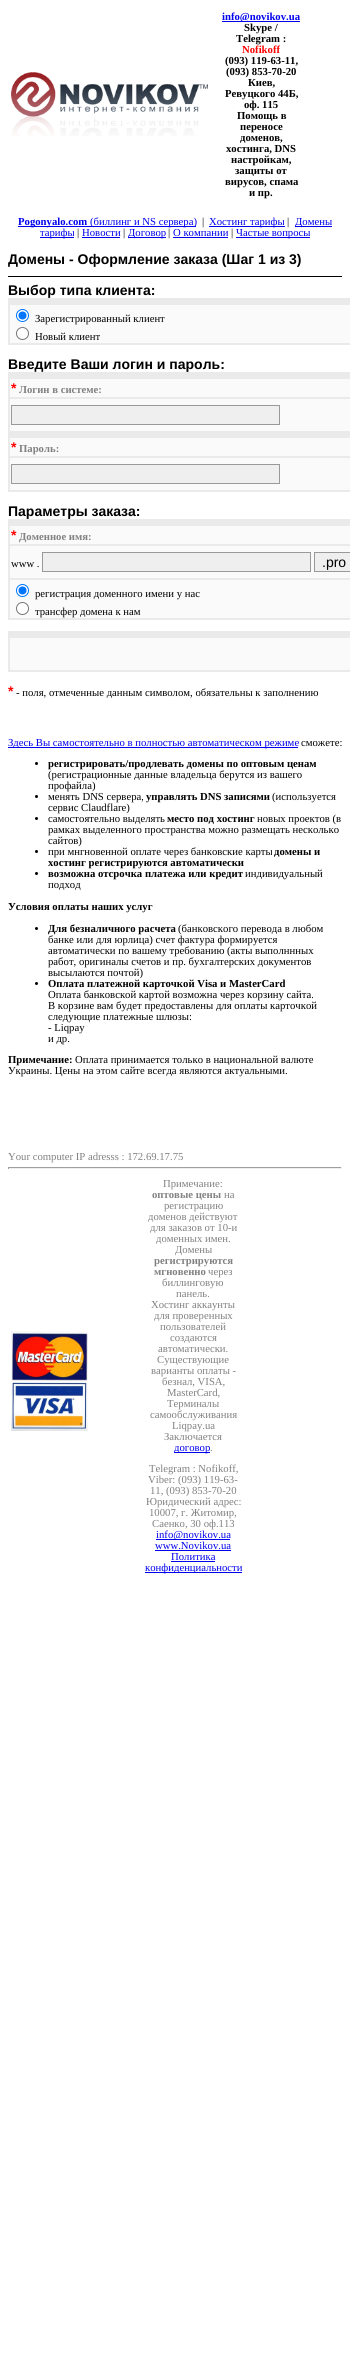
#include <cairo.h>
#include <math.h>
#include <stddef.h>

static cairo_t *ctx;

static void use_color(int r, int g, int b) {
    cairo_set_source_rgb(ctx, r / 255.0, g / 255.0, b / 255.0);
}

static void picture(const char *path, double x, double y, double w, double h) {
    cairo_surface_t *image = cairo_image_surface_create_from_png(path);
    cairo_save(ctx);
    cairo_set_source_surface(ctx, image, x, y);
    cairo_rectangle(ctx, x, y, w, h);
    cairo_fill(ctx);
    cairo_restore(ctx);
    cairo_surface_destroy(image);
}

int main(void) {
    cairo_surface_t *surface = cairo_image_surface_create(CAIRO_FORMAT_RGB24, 350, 2353);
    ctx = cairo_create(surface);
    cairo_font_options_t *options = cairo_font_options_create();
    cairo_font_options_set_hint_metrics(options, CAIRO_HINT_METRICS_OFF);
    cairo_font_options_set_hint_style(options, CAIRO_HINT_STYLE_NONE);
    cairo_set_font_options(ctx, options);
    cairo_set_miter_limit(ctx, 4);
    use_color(255, 255, 255);
    cairo_paint(ctx);
    picture("img1.png", 11, 72, 197, 64);
    use_color(0, 0, 238);
    cairo_rectangle(ctx, 222, 21, 78, 1);
    cairo_fill(ctx);
    cairo_select_font_face(ctx, "Liberation Serif", CAIRO_FONT_SLANT_NORMAL, CAIRO_FONT_WEIGHT_BOLD);
    cairo_set_font_size(ctx, 10.7);
    cairo_move_to(ctx, 222, 20);
    cairo_show_text(ctx, "info@novikov.ua");
    use_color(0, 0, 0);
    cairo_move_to(ctx, 244, 31);
    cairo_show_text(ctx, "Skype /");
    cairo_move_to(ctx, 236, 42);
    cairo_show_text(ctx, "Telegram :");
    use_color(255, 0, 0);
    cairo_move_to(ctx, 242, 53);
    cairo_show_text(ctx, "Nofikoff");
    use_color(0, 0, 0);
    cairo_move_to(ctx, 225, 64);
    cairo_show_text(ctx, "(093) 119-63-11,");
    cairo_move_to(ctx, 226, 75);
    cairo_show_text(ctx, "(093) 853-70-20");
    cairo_move_to(ctx, 248, 86);
    cairo_show_text(ctx, "Киев,");
    cairo_move_to(ctx, 225, 97);
    cairo_show_text(ctx, "Ревуцкого 44Б,");
    cairo_move_to(ctx, 244, 108);
    cairo_show_text(ctx, "оф. 115");
    cairo_move_to(ctx, 237, 119);
    cairo_show_text(ctx, "Помощь в");
    cairo_move_to(ctx, 240, 130);
    cairo_show_text(ctx, "переносе");
    cairo_move_to(ctx, 240, 141);
    cairo_show_text(ctx, "доменов,");
    cairo_move_to(ctx, 226, 152);
    cairo_show_text(ctx, "хостинга, DNS");
    cairo_move_to(ctx, 231, 163);
    cairo_show_text(ctx, "настройкам,");
    cairo_move_to(ctx, 235, 174);
    cairo_show_text(ctx, "защиты от");
    cairo_move_to(ctx, 225, 185);
    cairo_show_text(ctx, "вирусов, спама");
    cairo_move_to(ctx, 249, 196);
    cairo_show_text(ctx, "и пр.");
    use_color(0, 0, 238);
    cairo_rectangle(ctx, 18, 226, 178, 1);
    cairo_fill(ctx);
    cairo_move_to(ctx, 18, 225);
    cairo_show_text(ctx, "Pogonyalo.com");
    cairo_select_font_face(ctx, "Liberation Serif", CAIRO_FONT_SLANT_NORMAL, CAIRO_FONT_WEIGHT_NORMAL);
    cairo_move_to(ctx, 90, 225);
    cairo_show_text(ctx, "(биллинг и NS сервера)");
    use_color(0, 0, 0);
    cairo_move_to(ctx, 202, 225);
    cairo_show_text(ctx, "|");
    use_color(0, 0, 238);
    cairo_rectangle(ctx, 209, 226, 76, 1);
    cairo_fill(ctx);
    cairo_move_to(ctx, 209, 225);
    cairo_show_text(ctx, "Хостинг тарифы");
    use_color(0, 0, 0);
    cairo_move_to(ctx, 287, 225);
    cairo_show_text(ctx, "|");
    use_color(0, 0, 238);
    cairo_rectangle(ctx, 295, 226, 37, 1);
    cairo_fill(ctx);
    cairo_move_to(ctx, 295, 225);
    cairo_show_text(ctx, "Домены");
    cairo_rectangle(ctx, 40, 237, 34, 1);
    cairo_fill(ctx);
    cairo_move_to(ctx, 40, 236);
    cairo_show_text(ctx, "тарифы");
    use_color(0, 0, 0);
    cairo_move_to(ctx, 77, 236);
    cairo_show_text(ctx, "|");
    use_color(0, 0, 238);
    cairo_move_to(ctx, 82, 236);
    cairo_show_text(ctx, "Новости");
    cairo_rectangle(ctx, 82, 237, 38, 1);
    cairo_fill(ctx);
    use_color(0, 0, 0);
    cairo_move_to(ctx, 123, 236);
    cairo_show_text(ctx, "|");
    use_color(0, 0, 238);
    cairo_rectangle(ctx, 128, 237, 38, 1);
    cairo_fill(ctx);
    cairo_move_to(ctx, 128, 236);
    cairo_show_text(ctx, "Договор");
    use_color(0, 0, 0);
    cairo_move_to(ctx, 168, 236);
    cairo_show_text(ctx, "|");
    use_color(0, 0, 238);
    cairo_move_to(ctx, 173, 236);
    cairo_show_text(ctx, "О компании");
    cairo_rectangle(ctx, 173, 237, 55, 1);
    cairo_fill(ctx);
    use_color(0, 0, 0);
    cairo_move_to(ctx, 231, 236);
    cairo_show_text(ctx, "|");
    use_color(0, 0, 238);
    cairo_rectangle(ctx, 236, 237, 74, 1);
    cairo_fill(ctx);
    cairo_move_to(ctx, 236, 236);
    cairo_show_text(ctx, "Частые вопросы");
    cairo_select_font_face(ctx, "Liberation Sans", CAIRO_FONT_SLANT_NORMAL, CAIRO_FONT_WEIGHT_BOLD);
    cairo_set_font_size(ctx, 14);
    use_color(0, 0, 0);
    cairo_move_to(ctx, 8, 264);
    cairo_show_text(ctx, "Домены - Оформление заказа (Шаг 1 из 3)");
    cairo_rectangle(ctx, 8, 276, 334, 1);
    cairo_fill(ctx);
    cairo_move_to(ctx, 8, 295);
    cairo_show_text(ctx, "Выбор типа клиента:");
    use_color(234, 234, 234);
    cairo_rectangle(ctx, 8, 298, 342, 47);
    cairo_fill(ctx);
    use_color(250, 250, 250);
    cairo_rectangle(ctx, 10, 305, 340, 38);
    cairo_fill(ctx);
    use_color(255, 255, 255);
    cairo_arc(ctx, 22.5, 315.5, 6, 0, 2 * M_PI);
    cairo_fill_preserve(ctx);
    use_color(0, 117, 255);
    cairo_set_line_width(ctx, 1);
    cairo_stroke(ctx);
    cairo_arc(ctx, 22.5, 315.5, 4, 0, 2 * M_PI);
    cairo_fill(ctx);
    cairo_select_font_face(ctx, "Liberation Serif", CAIRO_FONT_SLANT_NORMAL, CAIRO_FONT_WEIGHT_NORMAL);
    cairo_set_font_size(ctx, 10.7);
    use_color(0, 0, 0);
    cairo_move_to(ctx, 35, 322);
    cairo_show_text(ctx, "Зарегистрированный клиент");
    use_color(255, 255, 255);
    cairo_new_path(ctx);
    cairo_arc(ctx, 22.5, 333.5, 6, 0, 2 * M_PI);
    cairo_fill_preserve(ctx);
    use_color(118, 118, 118);
    cairo_stroke(ctx);
    use_color(0, 0, 0);
    cairo_move_to(ctx, 35, 340);
    cairo_show_text(ctx, "Новый клиент");
    cairo_select_font_face(ctx, "Liberation Sans", CAIRO_FONT_SLANT_NORMAL, CAIRO_FONT_WEIGHT_BOLD);
    cairo_set_font_size(ctx, 14);
    cairo_move_to(ctx, 8, 369);
    cairo_show_text(ctx, "Введите Ваши логин и пароль:");
    use_color(234, 234, 234);
    cairo_rectangle(ctx, 8, 372, 342, 120);
    cairo_fill(ctx);
    use_color(250, 250, 250);
    cairo_rectangle(ctx, 10, 379, 340, 18);
    cairo_fill(ctx);
    use_color(255, 0, 0);
    cairo_move_to(ctx, 11, 393);
    cairo_show_text(ctx, "*");
    cairo_select_font_face(ctx, "Liberation Serif", CAIRO_FONT_SLANT_NORMAL, CAIRO_FONT_WEIGHT_BOLD);
    cairo_set_font_size(ctx, 10.7);
    use_color(129, 129, 129);
    cairo_move_to(ctx, 19, 393);
    cairo_show_text(ctx, "Логин в системе:");
    use_color(250, 250, 250);
    cairo_rectangle(ctx, 10, 399, 340, 32);
    cairo_fill(ctx);
    use_color(239, 239, 239);
    cairo_rectangle(ctx, 11.5, 405.5, 268, 19);
    cairo_fill_preserve(ctx);
    use_color(153, 153, 153);
    cairo_stroke(ctx);
    use_color(250, 250, 250);
    cairo_rectangle(ctx, 10, 438, 340, 18);
    cairo_fill(ctx);
    cairo_select_font_face(ctx, "Liberation Sans", CAIRO_FONT_SLANT_NORMAL, CAIRO_FONT_WEIGHT_BOLD);
    cairo_set_font_size(ctx, 14);
    use_color(255, 0, 0);
    cairo_move_to(ctx, 11, 452);
    cairo_show_text(ctx, "*");
    cairo_select_font_face(ctx, "Liberation Serif", CAIRO_FONT_SLANT_NORMAL, CAIRO_FONT_WEIGHT_BOLD);
    cairo_set_font_size(ctx, 10.7);
    use_color(129, 129, 129);
    cairo_move_to(ctx, 19, 452);
    cairo_show_text(ctx, "Пароль:");
    use_color(250, 250, 250);
    cairo_rectangle(ctx, 10, 458, 340, 32);
    cairo_fill(ctx);
    use_color(239, 239, 239);
    cairo_rectangle(ctx, 11.5, 464.5, 268, 19);
    cairo_fill_preserve(ctx);
    use_color(153, 153, 153);
    cairo_stroke(ctx);
    cairo_select_font_face(ctx, "Liberation Sans", CAIRO_FONT_SLANT_NORMAL, CAIRO_FONT_WEIGHT_BOLD);
    cairo_set_font_size(ctx, 14);
    use_color(0, 0, 0);
    cairo_move_to(ctx, 8, 516);
    cairo_show_text(ctx, "Параметры заказа:");
    use_color(234, 234, 234);
    cairo_rectangle(ctx, 8, 519, 342, 101);
    cairo_fill(ctx);
    use_color(250, 250, 250);
    cairo_rectangle(ctx, 10, 526, 340, 18);
    cairo_fill(ctx);
    use_color(255, 0, 0);
    cairo_move_to(ctx, 11, 540);
    cairo_show_text(ctx, "*");
    cairo_select_font_face(ctx, "Liberation Serif", CAIRO_FONT_SLANT_NORMAL, CAIRO_FONT_WEIGHT_BOLD);
    cairo_set_font_size(ctx, 10.7);
    use_color(129, 129, 129);
    cairo_move_to(ctx, 19, 540);
    cairo_show_text(ctx, "Доменное имя:");
    use_color(250, 250, 250);
    cairo_rectangle(ctx, 10, 546, 340, 32);
    cairo_fill(ctx);
    cairo_select_font_face(ctx, "Liberation Serif", CAIRO_FONT_SLANT_NORMAL, CAIRO_FONT_WEIGHT_NORMAL);
    use_color(0, 0, 0);
    cairo_move_to(ctx, 11, 567);
    cairo_show_text(ctx, "www .");
    use_color(239, 239, 239);
    cairo_rectangle(ctx, 42.5, 552.5, 268, 19);
    cairo_fill_preserve(ctx);
    use_color(153, 153, 153);
    cairo_stroke(ctx);
    use_color(239, 239, 239);
    cairo_rectangle(ctx, 314.5, 552.5, 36, 19);
    cairo_fill_preserve(ctx);
    use_color(153, 153, 153);
    cairo_stroke(ctx);
    cairo_select_font_face(ctx, "Liberation Sans", CAIRO_FONT_SLANT_NORMAL, CAIRO_FONT_WEIGHT_NORMAL);
    cairo_set_font_size(ctx, 14);
    use_color(0, 0, 0);
    cairo_move_to(ctx, 322, 567);
    cairo_show_text(ctx, ".pro");
    use_color(250, 250, 250);
    cairo_rectangle(ctx, 10, 580, 340, 38);
    cairo_fill(ctx);
    use_color(255, 255, 255);
    cairo_arc(ctx, 22.5, 590.5, 6, 0, 2 * M_PI);
    cairo_fill_preserve(ctx);
    use_color(0, 117, 255);
    cairo_stroke(ctx);
    cairo_arc(ctx, 22.5, 590.5, 4, 0, 2 * M_PI);
    cairo_fill(ctx);
    cairo_select_font_face(ctx, "Liberation Serif", CAIRO_FONT_SLANT_NORMAL, CAIRO_FONT_WEIGHT_NORMAL);
    cairo_set_font_size(ctx, 10.7);
    use_color(0, 0, 0);
    cairo_move_to(ctx, 35, 597);
    cairo_show_text(ctx, "регистрация доменного имени у нас");
    use_color(255, 255, 255);
    cairo_new_path(ctx);
    cairo_arc(ctx, 22.5, 608.5, 6, 0, 2 * M_PI);
    cairo_fill_preserve(ctx);
    use_color(118, 118, 118);
    cairo_stroke(ctx);
    use_color(0, 0, 0);
    cairo_move_to(ctx, 35, 615);
    cairo_show_text(ctx, "трансфер домена к нам");
    use_color(234, 234, 234);
    cairo_rectangle(ctx, 8, 631, 342, 41);
    cairo_fill(ctx);
    use_color(250, 250, 250);
    cairo_rectangle(ctx, 10, 638, 340, 32);
    cairo_fill(ctx);
    cairo_select_font_face(ctx, "Liberation Sans", CAIRO_FONT_SLANT_NORMAL, CAIRO_FONT_WEIGHT_BOLD);
    cairo_set_font_size(ctx, 14);
    use_color(255, 0, 0);
    cairo_move_to(ctx, 8, 696);
    cairo_show_text(ctx, "*");
    cairo_select_font_face(ctx, "Liberation Serif", CAIRO_FONT_SLANT_NORMAL, CAIRO_FONT_WEIGHT_NORMAL);
    cairo_set_font_size(ctx, 10.7);
    use_color(0, 0, 0);
    cairo_move_to(ctx, 16, 696);
    cairo_show_text(ctx, "- поля, отмеченные данным символом, обязательны к заполнению");
    use_color(0, 0, 238);
    cairo_rectangle(ctx, 8, 747, 290, 1);
    cairo_fill(ctx);
    cairo_move_to(ctx, 8, 746);
    cairo_show_text(ctx, "Здесь Вы самостоятельно в полностью автоматическом режиме");
    use_color(0, 0, 0);
    cairo_move_to(ctx, 301, 746);
    cairo_show_text(ctx, "cможете:");
    cairo_new_path(ctx);
    cairo_arc(ctx, 36.5, 763.5, 1.5, 0, 2 * M_PI);
    cairo_fill(ctx);
    cairo_select_font_face(ctx, "Liberation Serif", CAIRO_FONT_SLANT_NORMAL, CAIRO_FONT_WEIGHT_BOLD);
    cairo_move_to(ctx, 48, 767);
    cairo_show_text(ctx, "регистрировать/продлевать домены по оптовым ценам");
    cairo_select_font_face(ctx, "Liberation Serif", CAIRO_FONT_SLANT_NORMAL, CAIRO_FONT_WEIGHT_NORMAL);
    cairo_move_to(ctx, 48, 778);
    cairo_show_text(ctx, "(регистрационные данные владельца берутся из вашего");
    cairo_move_to(ctx, 48, 789);
    cairo_show_text(ctx, "профайла)");
    cairo_new_path(ctx);
    cairo_arc(ctx, 36.5, 796.5, 1.5, 0, 2 * M_PI);
    cairo_fill(ctx);
    cairo_move_to(ctx, 48, 800);
    cairo_show_text(ctx, "менять DNS сервера,");
    cairo_select_font_face(ctx, "Liberation Serif", CAIRO_FONT_SLANT_NORMAL, CAIRO_FONT_WEIGHT_BOLD);
    cairo_move_to(ctx, 146, 800);
    cairo_show_text(ctx, "управлять DNS записями");
    cairo_select_font_face(ctx, "Liberation Serif", CAIRO_FONT_SLANT_NORMAL, CAIRO_FONT_WEIGHT_NORMAL);
    cairo_move_to(ctx, 272, 800);
    cairo_show_text(ctx, "(используется");
    cairo_move_to(ctx, 48, 811);
    cairo_show_text(ctx, "сервис Claudflare)");
    cairo_new_path(ctx);
    cairo_arc(ctx, 36.5, 818.5, 1.5, 0, 2 * M_PI);
    cairo_fill(ctx);
    cairo_move_to(ctx, 48, 822);
    cairo_show_text(ctx, "самостоятельно выделять");
    cairo_select_font_face(ctx, "Liberation Serif", CAIRO_FONT_SLANT_NORMAL, CAIRO_FONT_WEIGHT_BOLD);
    cairo_move_to(ctx, 167, 822);
    cairo_show_text(ctx, "место под хостинг");
    cairo_select_font_face(ctx, "Liberation Serif", CAIRO_FONT_SLANT_NORMAL, CAIRO_FONT_WEIGHT_NORMAL);
    cairo_move_to(ctx, 257, 822);
    cairo_show_text(ctx, "новых проектов (в");
    cairo_move_to(ctx, 48, 833);
    cairo_show_text(ctx, "рамках выделенного пространства можно размещать несколько");
    cairo_move_to(ctx, 48, 844);
    cairo_show_text(ctx, "сайтов)");
    cairo_new_path(ctx);
    cairo_arc(ctx, 36.5, 851.5, 1.5, 0, 2 * M_PI);
    cairo_fill(ctx);
    cairo_move_to(ctx, 48, 855);
    cairo_show_text(ctx, "при мнгновенной оплате через банковские карты");
    cairo_select_font_face(ctx, "Liberation Serif", CAIRO_FONT_SLANT_NORMAL, CAIRO_FONT_WEIGHT_BOLD);
    cairo_move_to(ctx, 274, 855);
    cairo_show_text(ctx, "домены и");
    cairo_move_to(ctx, 48, 866);
    cairo_show_text(ctx, "хостинг регистрируются автоматически");
    cairo_new_path(ctx);
    cairo_arc(ctx, 36.5, 873.5, 1.5, 0, 2 * M_PI);
    cairo_fill(ctx);
    cairo_move_to(ctx, 48, 877);
    cairo_show_text(ctx, "возможна отсрочка платежа или кредит");
    cairo_select_font_face(ctx, "Liberation Serif", CAIRO_FONT_SLANT_NORMAL, CAIRO_FONT_WEIGHT_NORMAL);
    cairo_move_to(ctx, 245, 877);
    cairo_show_text(ctx, "индивидуальный");
    cairo_move_to(ctx, 48, 888);
    cairo_show_text(ctx, "подход");
    cairo_select_font_face(ctx, "Liberation Serif", CAIRO_FONT_SLANT_NORMAL, CAIRO_FONT_WEIGHT_BOLD);
    cairo_move_to(ctx, 8, 910);
    cairo_show_text(ctx, "Условия оплаты наших услуг");
    cairo_new_path(ctx);
    cairo_arc(ctx, 36.5, 928.5, 1.5, 0, 2 * M_PI);
    cairo_fill(ctx);
    cairo_move_to(ctx, 48, 932);
    cairo_show_text(ctx, "Для безналичного расчета");
    cairo_select_font_face(ctx, "Liberation Serif", CAIRO_FONT_SLANT_NORMAL, CAIRO_FONT_WEIGHT_NORMAL);
    cairo_move_to(ctx, 178, 932);
    cairo_show_text(ctx, "(банковского перевода в любом");
    cairo_move_to(ctx, 48, 943);
    cairo_show_text(ctx, "банке или для юрлица) счет фактура формируется");
    cairo_move_to(ctx, 48, 954);
    cairo_show_text(ctx, "автоматически по вашему требованию (акты выполннных");
    cairo_move_to(ctx, 48, 965);
    cairo_show_text(ctx, "работ, оригиналы счетов и пр. бухгалтерских документов");
    cairo_move_to(ctx, 48, 976);
    cairo_show_text(ctx, "высылаются почтой)");
    cairo_new_path(ctx);
    cairo_arc(ctx, 36.5, 983.5, 1.5, 0, 2 * M_PI);
    cairo_fill(ctx);
    cairo_select_font_face(ctx, "Liberation Serif", CAIRO_FONT_SLANT_NORMAL, CAIRO_FONT_WEIGHT_BOLD);
    cairo_move_to(ctx, 48, 987);
    cairo_show_text(ctx, "Оплата платежной карточкой Visa и MasterCard");
    cairo_select_font_face(ctx, "Liberation Serif", CAIRO_FONT_SLANT_NORMAL, CAIRO_FONT_WEIGHT_NORMAL);
    cairo_move_to(ctx, 48, 998);
    cairo_show_text(ctx, "Оплата банковской картой возможна через корзину сайта.");
    cairo_move_to(ctx, 48, 1009);
    cairo_show_text(ctx, "В корзине вам будет предоставлены для оплаты карточкой");
    cairo_move_to(ctx, 48, 1020);
    cairo_show_text(ctx, "следующие платежные шлюзы:");
    cairo_move_to(ctx, 48, 1031);
    cairo_show_text(ctx, "- Liqpay");
    cairo_move_to(ctx, 48, 1042);
    cairo_show_text(ctx, "и др.");
    cairo_select_font_face(ctx, "Liberation Serif", CAIRO_FONT_SLANT_NORMAL, CAIRO_FONT_WEIGHT_BOLD);
    cairo_move_to(ctx, 8, 1063);
    cairo_show_text(ctx, "Примечание:");
    cairo_select_font_face(ctx, "Liberation Serif", CAIRO_FONT_SLANT_NORMAL, CAIRO_FONT_WEIGHT_NORMAL);
    cairo_move_to(ctx, 75, 1063);
    cairo_show_text(ctx, "Оплата принимается только в национальной валюте");
    cairo_move_to(ctx, 8, 1074);
    cairo_show_text(ctx, "Украины. Цены на этом сайте всегда являются актуальными.");
    use_color(129, 129, 129);
    cairo_move_to(ctx, 8, 1160);
    cairo_show_text(ctx, "Your computer IP adresss : 172.69.17.75");
    use_color(159, 159, 159);
    cairo_rectangle(ctx, 8, 1167, 334, 1);
    cairo_fill(ctx);
    use_color(238, 238, 238);
    cairo_rectangle(ctx, 341, 1167, 1, 2);
    cairo_fill(ctx);
    cairo_rectangle(ctx, 8, 1168, 334, 1);
    cairo_fill(ctx);
    use_color(159, 159, 159);
    cairo_rectangle(ctx, 8, 1167, 1, 2);
    cairo_fill(ctx);
    picture("img2.png", 11, 1331, 77, 100);
    use_color(129, 129, 129);
    cairo_move_to(ctx, 163, 1187);
    cairo_show_text(ctx, "Примечание:");
    cairo_select_font_face(ctx, "Liberation Serif", CAIRO_FONT_SLANT_NORMAL, CAIRO_FONT_WEIGHT_BOLD);
    cairo_move_to(ctx, 152, 1198);
    cairo_show_text(ctx, "оптовые цены");
    cairo_select_font_face(ctx, "Liberation Serif", CAIRO_FONT_SLANT_NORMAL, CAIRO_FONT_WEIGHT_NORMAL);
    cairo_move_to(ctx, 224, 1198);
    cairo_show_text(ctx, "на");
    cairo_move_to(ctx, 164, 1209);
    cairo_show_text(ctx, "регистрацию");
    cairo_move_to(ctx, 148, 1220);
    cairo_show_text(ctx, "доменов действуют");
    cairo_move_to(ctx, 150, 1231);
    cairo_show_text(ctx, "для заказов от 10-и");
    cairo_move_to(ctx, 156, 1242);
    cairo_show_text(ctx, "доменных имен.");
    cairo_move_to(ctx, 175, 1253);
    cairo_show_text(ctx, "Домены");
    cairo_select_font_face(ctx, "Liberation Serif", CAIRO_FONT_SLANT_NORMAL, CAIRO_FONT_WEIGHT_BOLD);
    cairo_move_to(ctx, 154, 1264);
    cairo_show_text(ctx, "регистрируются");
    cairo_move_to(ctx, 154, 1275);
    cairo_show_text(ctx, "мгновенно");
    cairo_select_font_face(ctx, "Liberation Serif", CAIRO_FONT_SLANT_NORMAL, CAIRO_FONT_WEIGHT_NORMAL);
    cairo_move_to(ctx, 208, 1275);
    cairo_show_text(ctx, "через");
    cairo_move_to(ctx, 162, 1286);
    cairo_show_text(ctx, "биллинговую");
    cairo_move_to(ctx, 176, 1297);
    cairo_show_text(ctx, "панель.");
    cairo_move_to(ctx, 151, 1308);
    cairo_show_text(ctx, "Хостинг аккаунты");
    cairo_move_to(ctx, 154, 1319);
    cairo_show_text(ctx, "для проверенных");
    cairo_move_to(ctx, 160, 1330);
    cairo_show_text(ctx, "пользователей");
    cairo_move_to(ctx, 170, 1341);
    cairo_show_text(ctx, "создаются");
    cairo_move_to(ctx, 158, 1352);
    cairo_show_text(ctx, "автоматически.");
    cairo_move_to(ctx, 157, 1363);
    cairo_show_text(ctx, "Существующие");
    cairo_move_to(ctx, 151, 1374);
    cairo_show_text(ctx, "варианты оплаты -");
    cairo_move_to(ctx, 162, 1385);
    cairo_show_text(ctx, "безнал, VISA,");
    cairo_move_to(ctx, 167, 1396);
    cairo_show_text(ctx, "MasterCard,");
    cairo_move_to(ctx, 167, 1407);
    cairo_show_text(ctx, "Терминалы");
    cairo_move_to(ctx, 150, 1418);
    cairo_show_text(ctx, "самообслуживания");
    cairo_move_to(ctx, 172, 1429);
    cairo_show_text(ctx, "Liqpay.ua");
    cairo_move_to(ctx, 164, 1440);
    cairo_show_text(ctx, "Заключается");
    use_color(0, 0, 238);
    cairo_rectangle(ctx, 174, 1452, 36, 1);
    cairo_fill(ctx);
    cairo_move_to(ctx, 174, 1451);
    cairo_show_text(ctx, "договор");
    use_color(129, 129, 129);
    cairo_move_to(ctx, 210, 1451);
    cairo_show_text(ctx, ".");
    cairo_move_to(ctx, 149, 1472);
    cairo_show_text(ctx, "Telegram : Nofikoff,");
    cairo_move_to(ctx, 148, 1483);
    cairo_show_text(ctx, "Viber: (093) 119-63-");
    cairo_move_to(ctx, 150, 1494);
    cairo_show_text(ctx, "11, (093) 853-70-20");
    cairo_move_to(ctx, 146, 1505);
    cairo_show_text(ctx, "Юридический адрес:");
    cairo_move_to(ctx, 149, 1516);
    cairo_show_text(ctx, "10007, г. Житомир,");
    cairo_move_to(ctx, 152, 1527);
    cairo_show_text(ctx, "Саенко, 30 оф.113");
    use_color(0, 0, 238);
    cairo_rectangle(ctx, 156, 1539, 74, 1);
    cairo_fill(ctx);
    cairo_move_to(ctx, 156, 1538);
    cairo_show_text(ctx, "info@novikov.ua");
    cairo_move_to(ctx, 155, 1549);
    cairo_show_text(ctx, "www.Novikov.ua");
    cairo_rectangle(ctx, 155, 1550, 76, 1);
    cairo_fill(ctx);
    cairo_move_to(ctx, 171, 1560);
    cairo_show_text(ctx, "Политика");
    cairo_rectangle(ctx, 171, 1561, 44, 1);
    cairo_fill(ctx);
    cairo_rectangle(ctx, 145, 1572, 97, 1);
    cairo_fill(ctx);
    cairo_move_to(ctx, 145, 1571);
    cairo_show_text(ctx, "конфиденциальности");
    cairo_surface_write_to_png(surface, "result.png");
    cairo_font_options_destroy(options);
    cairo_destroy(ctx);
    cairo_surface_destroy(surface);
    return 0;
}
